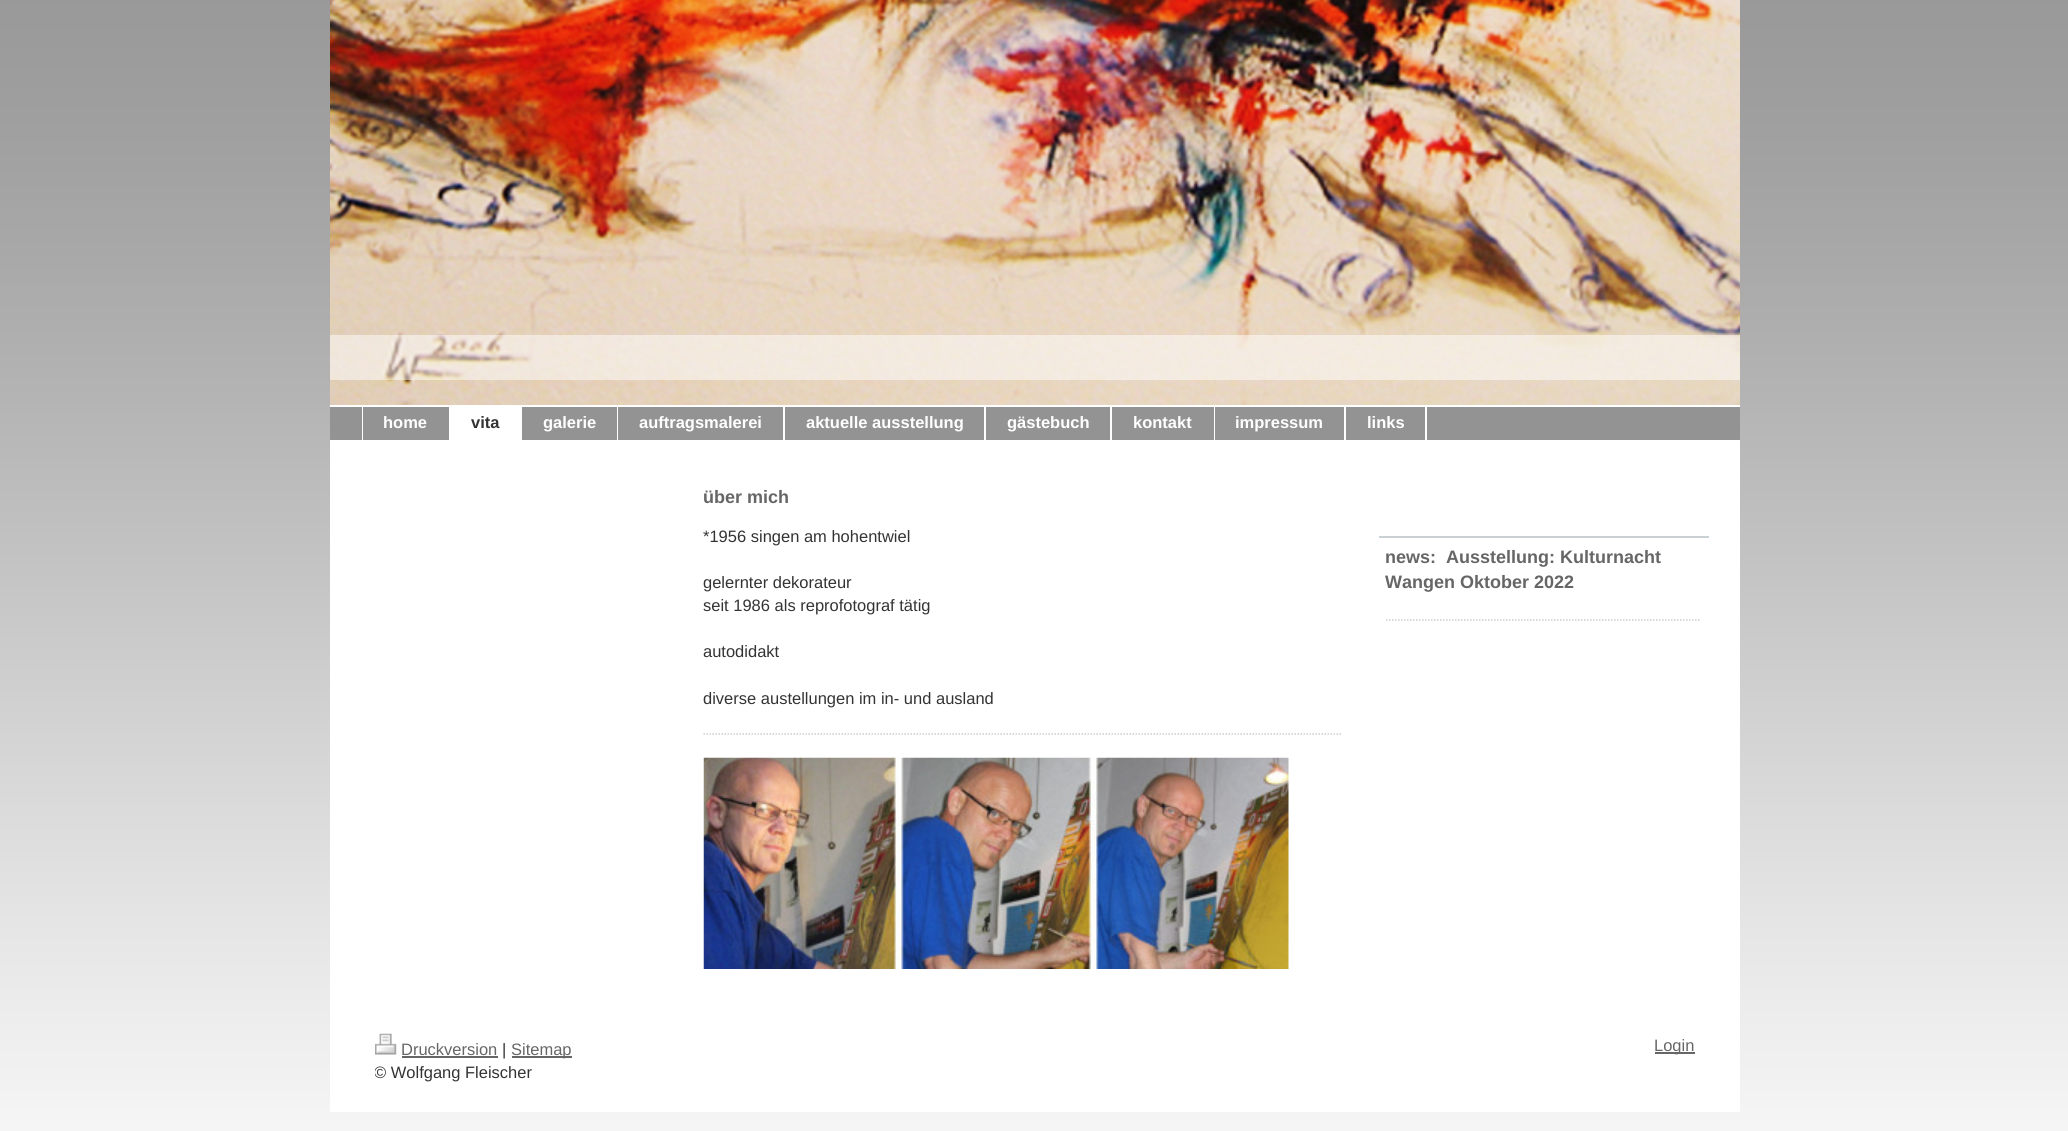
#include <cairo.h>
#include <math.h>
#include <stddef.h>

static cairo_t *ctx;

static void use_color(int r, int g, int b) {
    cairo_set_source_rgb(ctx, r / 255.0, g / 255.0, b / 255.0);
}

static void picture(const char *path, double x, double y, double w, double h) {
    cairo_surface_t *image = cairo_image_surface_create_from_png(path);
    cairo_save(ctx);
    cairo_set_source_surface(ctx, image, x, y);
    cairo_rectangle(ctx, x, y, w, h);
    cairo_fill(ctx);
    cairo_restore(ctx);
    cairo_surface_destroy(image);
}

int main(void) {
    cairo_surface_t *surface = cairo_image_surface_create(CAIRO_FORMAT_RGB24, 2068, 1131);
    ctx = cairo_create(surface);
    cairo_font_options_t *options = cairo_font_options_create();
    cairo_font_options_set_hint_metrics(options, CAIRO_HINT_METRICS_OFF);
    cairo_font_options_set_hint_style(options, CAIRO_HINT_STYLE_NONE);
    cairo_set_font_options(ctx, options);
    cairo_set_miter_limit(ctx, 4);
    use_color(255, 255, 255);
    cairo_paint(ctx);
    picture("img1.png", 0, 0, 2068, 1131);
    use_color(255, 255, 255);
    cairo_rectangle(ctx, 330, 405, 1410, 707);
    cairo_fill(ctx);
    picture("img2.png", 330, 0, 1410, 405);
    cairo_set_source_rgba(ctx, 1, 1, 1, 0.5);
    cairo_rectangle(ctx, 330, 335, 1410, 45);
    cairo_fill(ctx);
    use_color(147, 147, 147);
    cairo_rectangle(ctx, 330, 407, 1410, 33);
    cairo_fill(ctx);
    use_color(255, 255, 255);
    cairo_rectangle(ctx, 362, 405, 1, 35);
    cairo_fill(ctx);
    cairo_rectangle(ctx, 449, 405, 1, 36);
    cairo_fill(ctx);
    cairo_select_font_face(ctx, "Liberation Sans", CAIRO_FONT_SLANT_NORMAL, CAIRO_FONT_WEIGHT_BOLD);
    cairo_set_font_size(ctx, 16.5);
    cairo_move_to(ctx, 383, 428);
    cairo_show_text(ctx, "home");
    cairo_rectangle(ctx, 450, 407, 71, 33);
    cairo_fill(ctx);
    cairo_rectangle(ctx, 521, 405, 1, 36);
    cairo_fill(ctx);
    use_color(51, 51, 51);
    cairo_move_to(ctx, 471, 428);
    cairo_show_text(ctx, "vita");
    use_color(255, 255, 255);
    cairo_rectangle(ctx, 617, 405, 1, 36);
    cairo_fill(ctx);
    cairo_move_to(ctx, 543, 428);
    cairo_show_text(ctx, "galerie");
    cairo_rectangle(ctx, 783, 405, 2, 36);
    cairo_fill(ctx);
    cairo_move_to(ctx, 639, 428);
    cairo_show_text(ctx, "auftragsmalerei");
    cairo_rectangle(ctx, 984, 405, 2, 36);
    cairo_fill(ctx);
    cairo_move_to(ctx, 806, 428);
    cairo_show_text(ctx, "aktuelle ausstellung");
    cairo_rectangle(ctx, 1110, 405, 2, 36);
    cairo_fill(ctx);
    cairo_move_to(ctx, 1007, 428);
    cairo_show_text(ctx, "gästebuch");
    cairo_rectangle(ctx, 1214, 405, 1, 36);
    cairo_fill(ctx);
    cairo_move_to(ctx, 1133, 428);
    cairo_show_text(ctx, "kontakt");
    cairo_rectangle(ctx, 1344, 405, 2, 36);
    cairo_fill(ctx);
    cairo_move_to(ctx, 1235, 428);
    cairo_show_text(ctx, "impressum");
    cairo_rectangle(ctx, 1425, 405, 2, 36);
    cairo_fill(ctx);
    cairo_move_to(ctx, 1367, 428);
    cairo_show_text(ctx, "links");
    cairo_set_font_size(ctx, 18);
    use_color(102, 102, 102);
    cairo_move_to(ctx, 703, 503);
    cairo_show_text(ctx, "über mich");
    cairo_select_font_face(ctx, "Liberation Sans", CAIRO_FONT_SLANT_NORMAL, CAIRO_FONT_WEIGHT_NORMAL);
    cairo_set_font_size(ctx, 16.5);
    use_color(51, 51, 51);
    cairo_move_to(ctx, 703, 542);
    cairo_show_text(ctx, "*1956 singen am hohentwiel");
    cairo_move_to(ctx, 703, 588);
    cairo_show_text(ctx, "gelernter dekorateur");
    cairo_move_to(ctx, 703, 611);
    cairo_show_text(ctx, "seit 1986 als reprofotograf tätig");
    cairo_move_to(ctx, 703, 657);
    cairo_show_text(ctx, "autodidakt");
    cairo_move_to(ctx, 703, 704);
    cairo_show_text(ctx, "diverse austellungen im in- und ausland");
    cairo_new_path(ctx);
    cairo_move_to(ctx, 703.5, 734);
    cairo_line_to(ctx, 1341, 734);
    use_color(204, 204, 204);
    cairo_set_line_width(ctx, 1.5);
    cairo_set_dash(ctx, (double[]){1.5, 1.5}, 2, 0);
    cairo_stroke(ctx);
    picture("img3.png", 703, 757, 586, 212);
    use_color(202, 209, 213);
    cairo_rectangle(ctx, 1379, 536, 330, 2);
    cairo_fill(ctx);
    cairo_select_font_face(ctx, "Liberation Sans", CAIRO_FONT_SLANT_NORMAL, CAIRO_FONT_WEIGHT_BOLD);
    cairo_set_font_size(ctx, 18);
    use_color(102, 102, 102);
    cairo_move_to(ctx, 1385, 563);
    cairo_show_text(ctx, "news:  Ausstellung: Kulturnacht");
    cairo_move_to(ctx, 1385, 588);
    cairo_show_text(ctx, "Wangen Oktober 2022");
    cairo_new_path(ctx);
    cairo_move_to(ctx, 1386, 620);
    cairo_line_to(ctx, 1701, 620);
    use_color(204, 204, 204);
    cairo_stroke(ctx);
    picture("img4.png", 375, 1033, 22, 22);
    cairo_select_font_face(ctx, "Liberation Sans", CAIRO_FONT_SLANT_NORMAL, CAIRO_FONT_WEIGHT_NORMAL);
    cairo_set_font_size(ctx, 16.5);
    use_color(102, 102, 102);
    cairo_move_to(ctx, 401, 1055);
    cairo_show_text(ctx, "Druckversion");
    cairo_rectangle(ctx, 402, 1056, 96, 2);
    cairo_fill(ctx);
    use_color(51, 51, 51);
    cairo_move_to(ctx, 502, 1055);
    cairo_show_text(ctx, "|");
    use_color(102, 102, 102);
    cairo_rectangle(ctx, 512, 1056, 60, 2);
    cairo_fill(ctx);
    cairo_move_to(ctx, 511, 1055);
    cairo_show_text(ctx, "Sitemap");
    cairo_save(ctx);
    cairo_rectangle(ctx, 375, 1034, 1320, 51);
    cairo_clip(ctx);
    use_color(51, 51, 51);
    cairo_move_to(ctx, 374, 1078);
    cairo_show_text(ctx, "© Wolfgang Fleischer");
    cairo_restore(ctx);
    cairo_rectangle(ctx, 1655, 1052, 40, 2);
    cairo_fill(ctx);
    cairo_move_to(ctx, 1654, 1051);
    cairo_show_text(ctx, "Login");
    cairo_surface_write_to_png(surface, "result.png");
    cairo_font_options_destroy(options);
    cairo_destroy(ctx);
    cairo_surface_destroy(surface);
    return 0;
}
